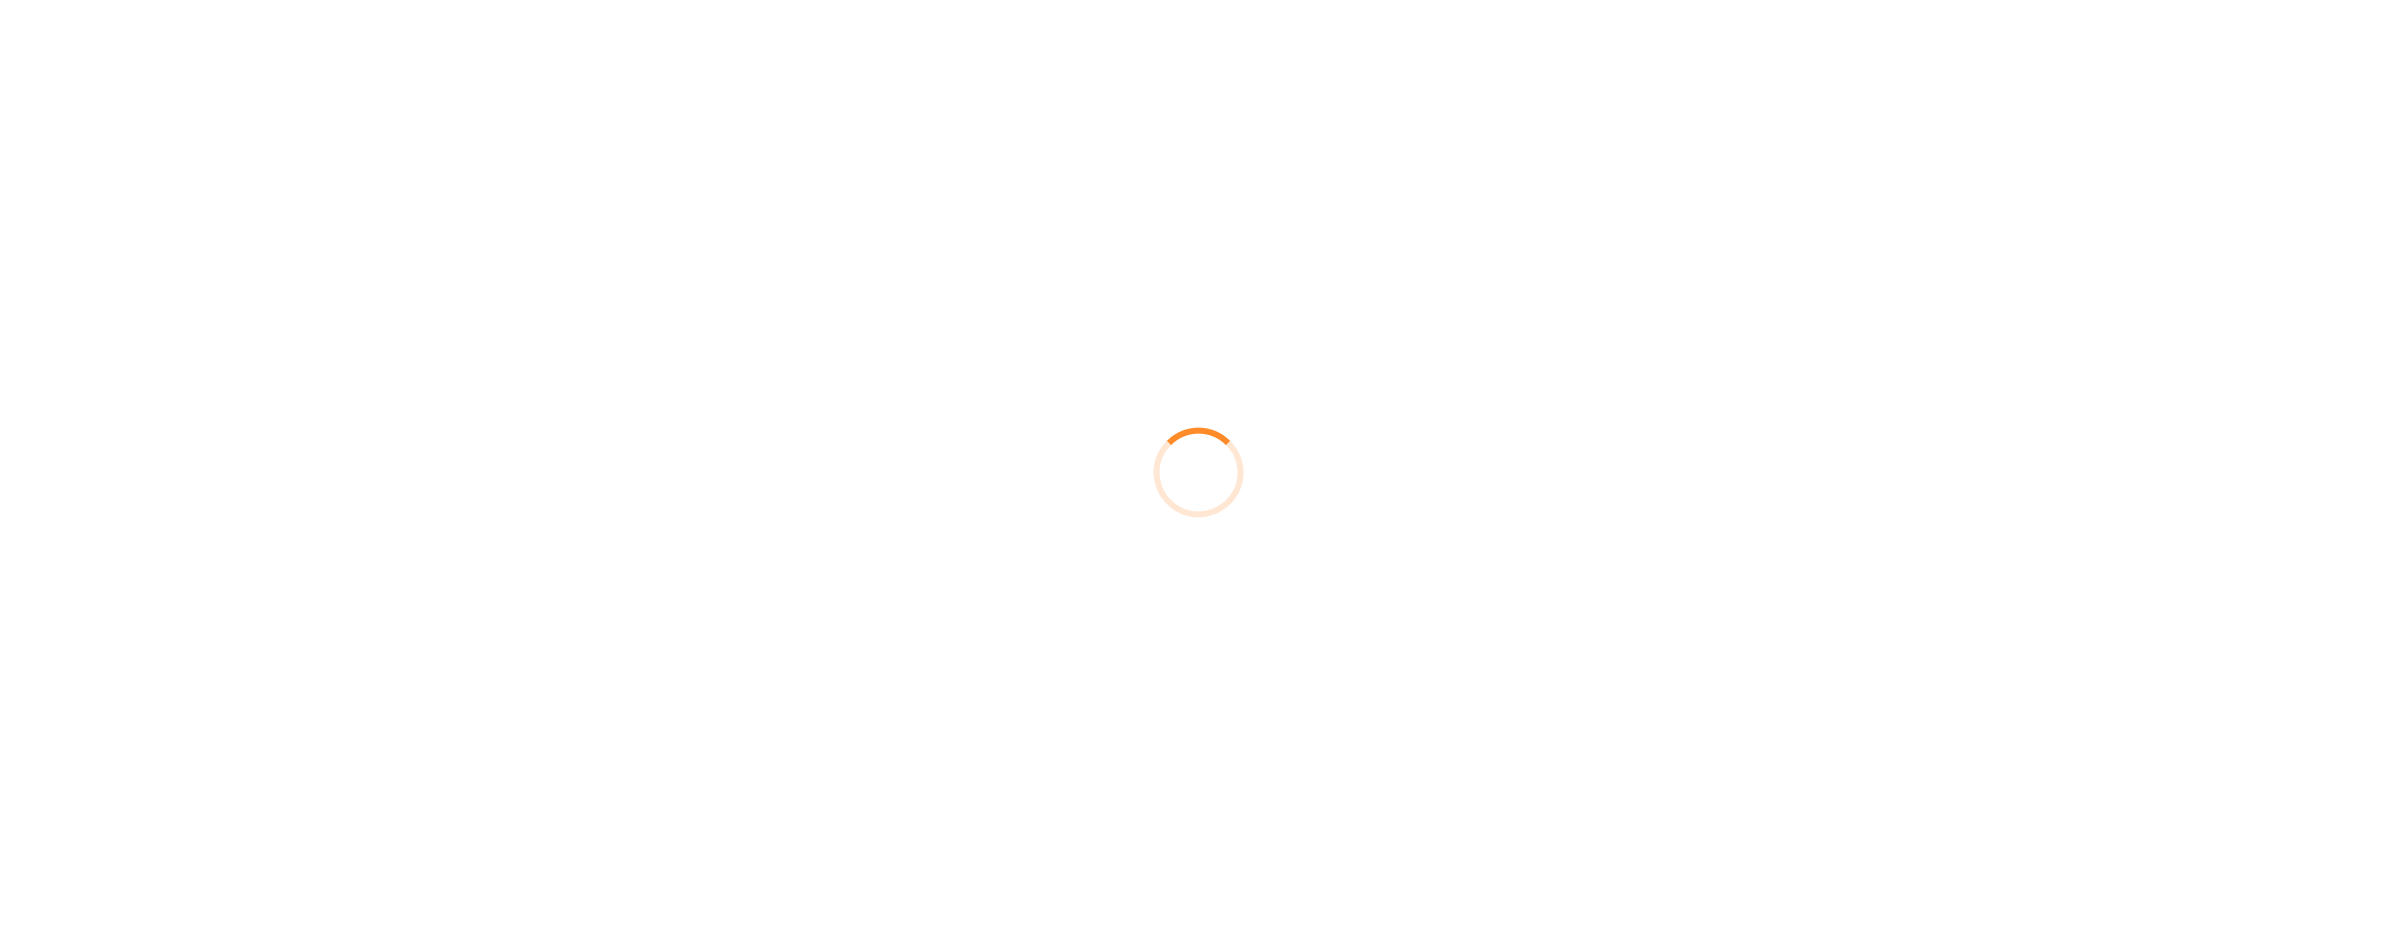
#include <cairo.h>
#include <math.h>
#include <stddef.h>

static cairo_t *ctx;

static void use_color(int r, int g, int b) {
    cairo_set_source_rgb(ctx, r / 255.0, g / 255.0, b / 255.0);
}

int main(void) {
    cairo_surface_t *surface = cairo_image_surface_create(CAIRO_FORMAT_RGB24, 2396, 944);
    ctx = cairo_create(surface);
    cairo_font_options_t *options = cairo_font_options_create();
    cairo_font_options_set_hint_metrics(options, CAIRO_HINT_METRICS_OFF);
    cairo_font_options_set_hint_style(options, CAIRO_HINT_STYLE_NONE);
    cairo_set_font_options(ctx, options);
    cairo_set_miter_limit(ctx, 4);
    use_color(255, 255, 255);
    cairo_paint(ctx);
    cairo_new_path(ctx);
    cairo_move_to(ctx, 1169, 443);
    cairo_curve_to(ctx, 1185, 426.5, 1212, 426.5, 1228, 443);
    use_color(255, 139, 40);
    cairo_set_line_width(ctx, 6);
    cairo_stroke(ctx);
    cairo_new_path(ctx);
    cairo_move_to(ctx, 1228, 443);
    cairo_curve_to(ctx, 1236, 450.5, 1240.5, 461.5, 1240.5, 472.5);
    cairo_curve_to(ctx, 1240.5, 509.5, 1195, 528.5, 1169, 502);
    cairo_curve_to(ctx, 1163, 496.5, 1159, 489, 1157.5, 480.5);
    cairo_curve_to(ctx, 1154.5, 467, 1159, 452.5, 1169, 443);
    cairo_set_source_rgba(ctx, 1, 0.545, 0.157, 0.2);
    cairo_stroke(ctx);
    cairo_surface_write_to_png(surface, "result.png");
    cairo_font_options_destroy(options);
    cairo_destroy(ctx);
    cairo_surface_destroy(surface);
    return 0;
}
